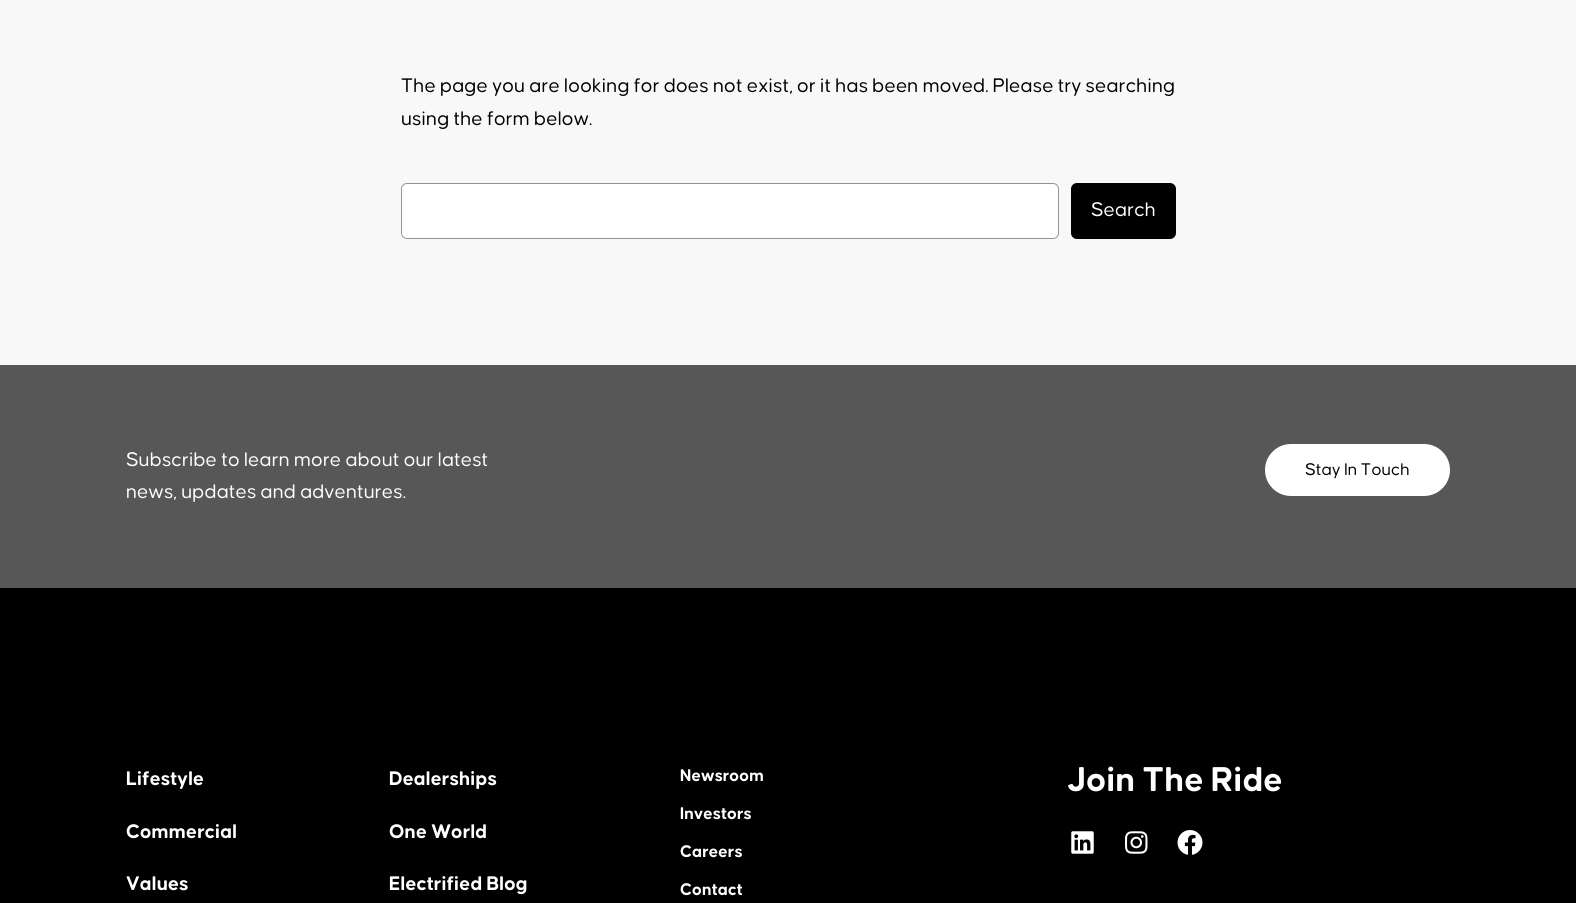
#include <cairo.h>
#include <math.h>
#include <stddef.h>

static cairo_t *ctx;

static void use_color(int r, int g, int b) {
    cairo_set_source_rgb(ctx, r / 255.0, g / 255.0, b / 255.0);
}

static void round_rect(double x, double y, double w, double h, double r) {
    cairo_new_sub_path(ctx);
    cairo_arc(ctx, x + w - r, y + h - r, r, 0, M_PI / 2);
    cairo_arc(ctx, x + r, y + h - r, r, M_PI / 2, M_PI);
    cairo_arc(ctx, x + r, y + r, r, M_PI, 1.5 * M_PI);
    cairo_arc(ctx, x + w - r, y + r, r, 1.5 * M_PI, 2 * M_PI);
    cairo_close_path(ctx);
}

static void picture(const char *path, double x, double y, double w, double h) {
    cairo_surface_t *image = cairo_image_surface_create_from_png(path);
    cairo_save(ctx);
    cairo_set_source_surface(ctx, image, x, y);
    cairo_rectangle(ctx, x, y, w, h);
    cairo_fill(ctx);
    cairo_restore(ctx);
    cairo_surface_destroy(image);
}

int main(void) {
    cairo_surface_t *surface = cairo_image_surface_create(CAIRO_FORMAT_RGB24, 1576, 903);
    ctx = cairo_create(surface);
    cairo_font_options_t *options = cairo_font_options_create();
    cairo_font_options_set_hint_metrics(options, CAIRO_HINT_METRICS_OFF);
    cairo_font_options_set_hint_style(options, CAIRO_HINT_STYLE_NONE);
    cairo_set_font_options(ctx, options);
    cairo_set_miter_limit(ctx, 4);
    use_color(248, 248, 248);
    cairo_paint(ctx);
    cairo_select_font_face(ctx, "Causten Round", CAIRO_FONT_SLANT_NORMAL, CAIRO_FONT_WEIGHT_NORMAL);
    cairo_set_font_size(ctx, 21);
    use_color(0, 0, 0);
    cairo_move_to(ctx, 401, 92);
    cairo_show_text(ctx, "The page you are looking for does not exist, or it has been moved. Please try searching");
    cairo_move_to(ctx, 401, 125);
    cairo_show_text(ctx, "using the form below.");
    use_color(255, 255, 255);
    round_rect(401.5, 183.5, 657, 55, 5.5);
    cairo_fill_preserve(ctx);
    use_color(148, 148, 148);
    cairo_set_line_width(ctx, 1);
    cairo_stroke(ctx);
    use_color(0, 0, 0);
    round_rect(1071, 183, 105, 56, 6);
    cairo_fill(ctx);
    use_color(255, 255, 255);
    cairo_move_to(ctx, 1091, 216);
    cairo_show_text(ctx, "Search");
    use_color(87, 87, 87);
    cairo_rectangle(ctx, 0, 365, 1576, 223);
    cairo_fill(ctx);
    use_color(255, 255, 255);
    cairo_move_to(ctx, 126, 466);
    cairo_show_text(ctx, "Subscribe to learn more about our latest");
    cairo_move_to(ctx, 126, 498);
    cairo_show_text(ctx, "news, updates and adventures.");
    round_rect(1265, 444, 185, 52, 26);
    cairo_fill(ctx);
    cairo_set_font_size(ctx, 18);
    use_color(0, 0, 0);
    cairo_move_to(ctx, 1305, 475);
    cairo_show_text(ctx, "Stay In Touch");
    cairo_rectangle(ctx, 0, 588, 1576, 315);
    cairo_fill(ctx);
    cairo_select_font_face(ctx, "Causten Round", CAIRO_FONT_SLANT_NORMAL, CAIRO_FONT_WEIGHT_BOLD);
    cairo_set_font_size(ctx, 21);
    use_color(255, 255, 255);
    cairo_move_to(ctx, 126, 785);
    cairo_show_text(ctx, "Lifestyle");
    cairo_move_to(ctx, 126, 838);
    cairo_show_text(ctx, "Commercial");
    cairo_move_to(ctx, 126, 890);
    cairo_show_text(ctx, "Values");
    cairo_move_to(ctx, 389, 785);
    cairo_show_text(ctx, "Dealerships");
    cairo_move_to(ctx, 389, 838);
    cairo_show_text(ctx, "One World");
    cairo_move_to(ctx, 389, 890);
    cairo_show_text(ctx, "Electrified Blog");
    cairo_set_font_size(ctx, 18);
    cairo_move_to(ctx, 680, 781);
    cairo_show_text(ctx, "Newsroom");
    cairo_move_to(ctx, 680, 819);
    cairo_show_text(ctx, "Investors");
    cairo_move_to(ctx, 680, 857);
    cairo_show_text(ctx, "Careers");
    cairo_move_to(ctx, 680, 895);
    cairo_show_text(ctx, "Contact");
    cairo_set_font_size(ctx, 36.75);
    cairo_move_to(ctx, 1067, 791);
    cairo_show_text(ctx, "Join The Ride");
    picture("img1.png", 1071, 831, 23, 23);
    picture("img2.png", 1125, 831, 23, 23);
    picture("img3.png", 1177, 830, 26, 25);
    cairo_surface_write_to_png(surface, "result.png");
    cairo_font_options_destroy(options);
    cairo_destroy(ctx);
    cairo_surface_destroy(surface);
    return 0;
}
